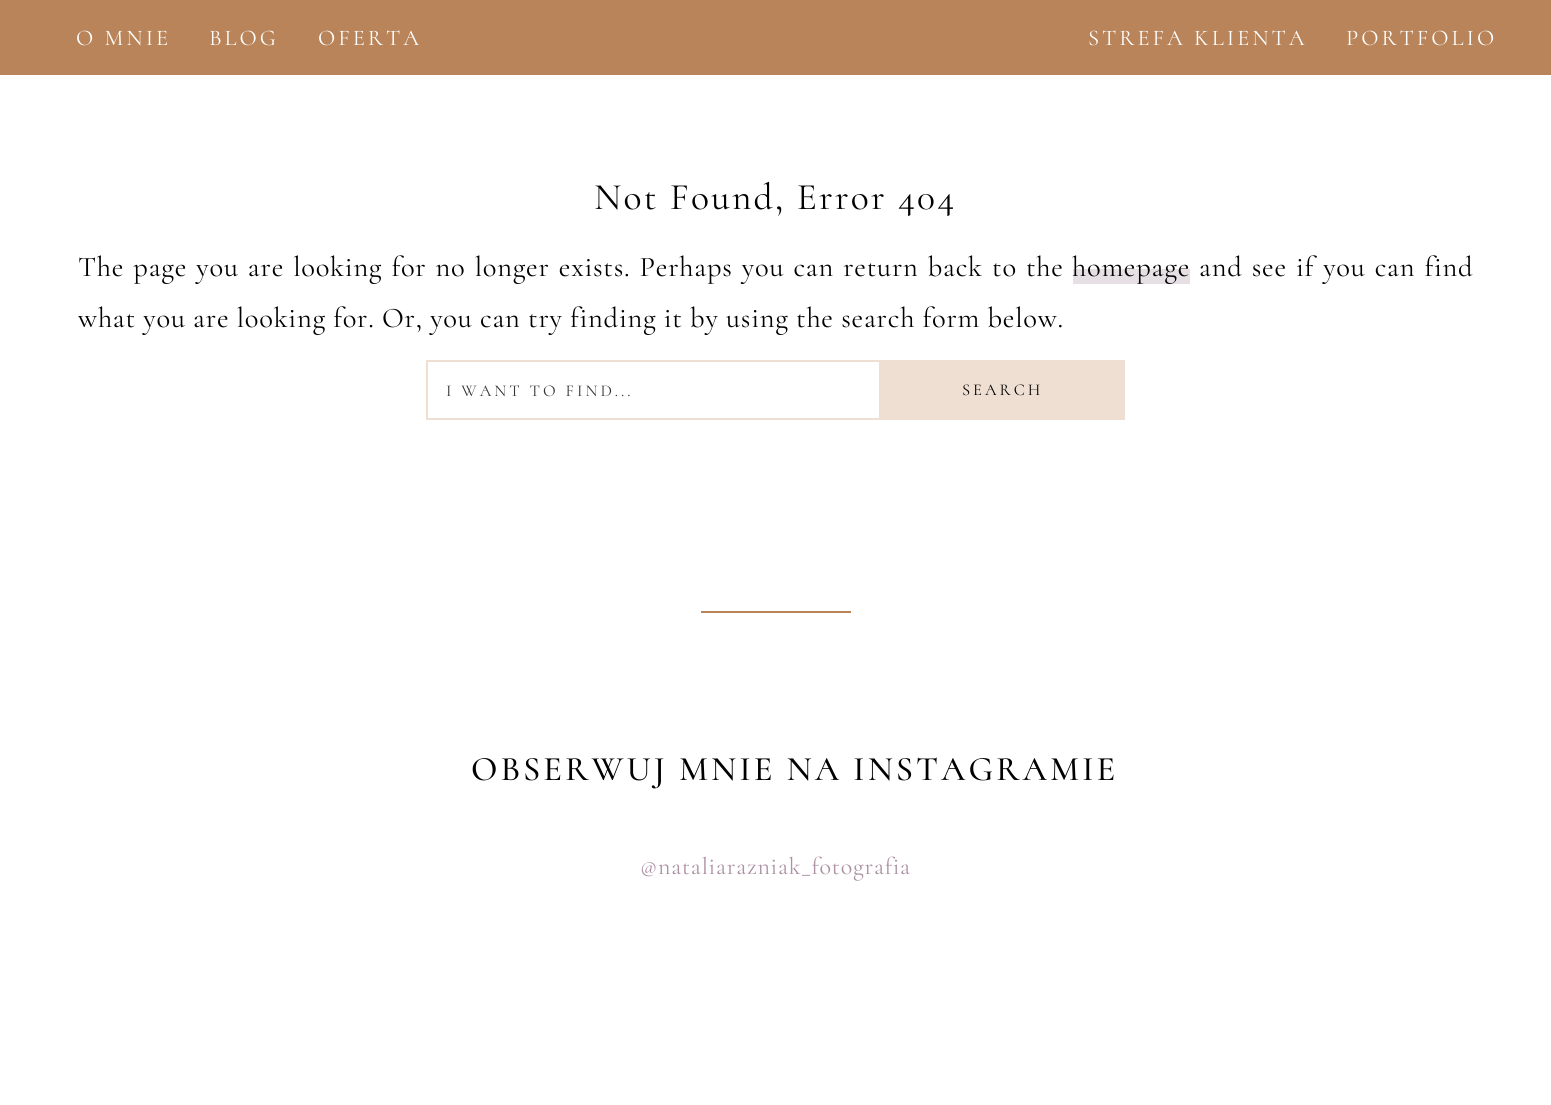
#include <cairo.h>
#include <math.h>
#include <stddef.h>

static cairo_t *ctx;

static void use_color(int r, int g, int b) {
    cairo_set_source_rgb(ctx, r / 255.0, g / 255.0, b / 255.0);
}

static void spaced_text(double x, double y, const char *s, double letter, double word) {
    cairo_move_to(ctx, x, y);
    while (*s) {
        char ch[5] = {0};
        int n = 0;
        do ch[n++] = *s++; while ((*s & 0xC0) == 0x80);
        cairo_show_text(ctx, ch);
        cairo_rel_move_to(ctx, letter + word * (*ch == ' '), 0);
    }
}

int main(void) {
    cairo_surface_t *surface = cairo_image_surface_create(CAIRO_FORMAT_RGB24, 1551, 1105);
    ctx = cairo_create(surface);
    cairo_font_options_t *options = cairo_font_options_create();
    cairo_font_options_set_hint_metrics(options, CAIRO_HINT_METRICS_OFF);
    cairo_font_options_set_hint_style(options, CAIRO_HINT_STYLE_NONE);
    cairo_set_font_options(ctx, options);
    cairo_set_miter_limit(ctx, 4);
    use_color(255, 255, 255);
    cairo_paint(ctx);
    use_color(185, 132, 89);
    cairo_rectangle(ctx, 0, 0, 1551, 75);
    cairo_fill(ctx);
    cairo_select_font_face(ctx, "Cormorant", CAIRO_FONT_SLANT_NORMAL, CAIRO_FONT_WEIGHT_NORMAL);
    cairo_set_font_size(ctx, 22.5);
    use_color(255, 255, 255);
    spaced_text(76, 45, "O MNIE", 3, 0);
    spaced_text(209, 45, "BLOG", 3, 0);
    spaced_text(318, 45, "OFERTA", 3, 0);
    spaced_text(1088, 45, "STREFA KLIENTA", 3, 0);
    spaced_text(1346, 45, "PORTFOLIO", 3, 0);
    cairo_set_font_size(ctx, 37.5);
    use_color(0, 0, 0);
    spaced_text(594, 209, "Not Found, Error 404", 2.25, 0);
    cairo_select_font_face(ctx, "Cormorant Garamond", CAIRO_FONT_SLANT_NORMAL, CAIRO_FONT_WEIGHT_NORMAL);
    cairo_set_font_size(ctx, 28.5);
    spaced_text(78, 276, "The page you are looking for no longer exists. Perhaps you can return back to the", 0.75, 1.75);
    use_color(230, 223, 228);
    cairo_rectangle(ctx, 1073, 269, 117, 15);
    cairo_fill(ctx);
    use_color(0, 0, 0);
    spaced_text(1072, 276, "homepage", 0.75, 0);
    spaced_text(1199, 276, "and see if you can find", 0.75, 1.75);
    spaced_text(78, 327, "what you are looking for. Or, you can try finding it by using the search form below.", 0.75, 0);
    cairo_rectangle(ctx, 427, 361, 453, 58);
    use_color(238, 223, 210);
    cairo_stroke(ctx);
    cairo_select_font_face(ctx, "Cormorant", CAIRO_FONT_SLANT_NORMAL, CAIRO_FONT_WEIGHT_NORMAL);
    cairo_set_font_size(ctx, 16.5);
    use_color(51, 51, 51);
    spaced_text(446, 396, "I WANT TO FIND...", 3, 0);
    use_color(238, 223, 210);
    cairo_rectangle(ctx, 881, 360, 244, 60);
    cairo_fill(ctx);
    use_color(0, 0, 0);
    spaced_text(962, 395, "SEARCH", 3, 0);
    use_color(185, 132, 89);
    cairo_rectangle(ctx, 701, 611, 150, 2);
    cairo_fill(ctx);
    cairo_select_font_face(ctx, "Cormorant Medium", CAIRO_FONT_SLANT_NORMAL, CAIRO_FONT_WEIGHT_NORMAL);
    cairo_set_font_size(ctx, 34.5);
    use_color(0, 0, 0);
    spaced_text(471, 780, "OBSERWUJ MNIE NA INSTAGRAMIE", 3, 0);
    cairo_select_font_face(ctx, "Cormorant Garamond", CAIRO_FONT_SLANT_NORMAL, CAIRO_FONT_WEIGHT_NORMAL);
    cairo_set_font_size(ctx, 24);
    use_color(172, 145, 162);
    spaced_text(640, 874, "@nataliarazniak_fotografia", 0.75, 0);
    cairo_surface_write_to_png(surface, "result.png");
    cairo_font_options_destroy(options);
    cairo_destroy(ctx);
    cairo_surface_destroy(surface);
    return 0;
}
